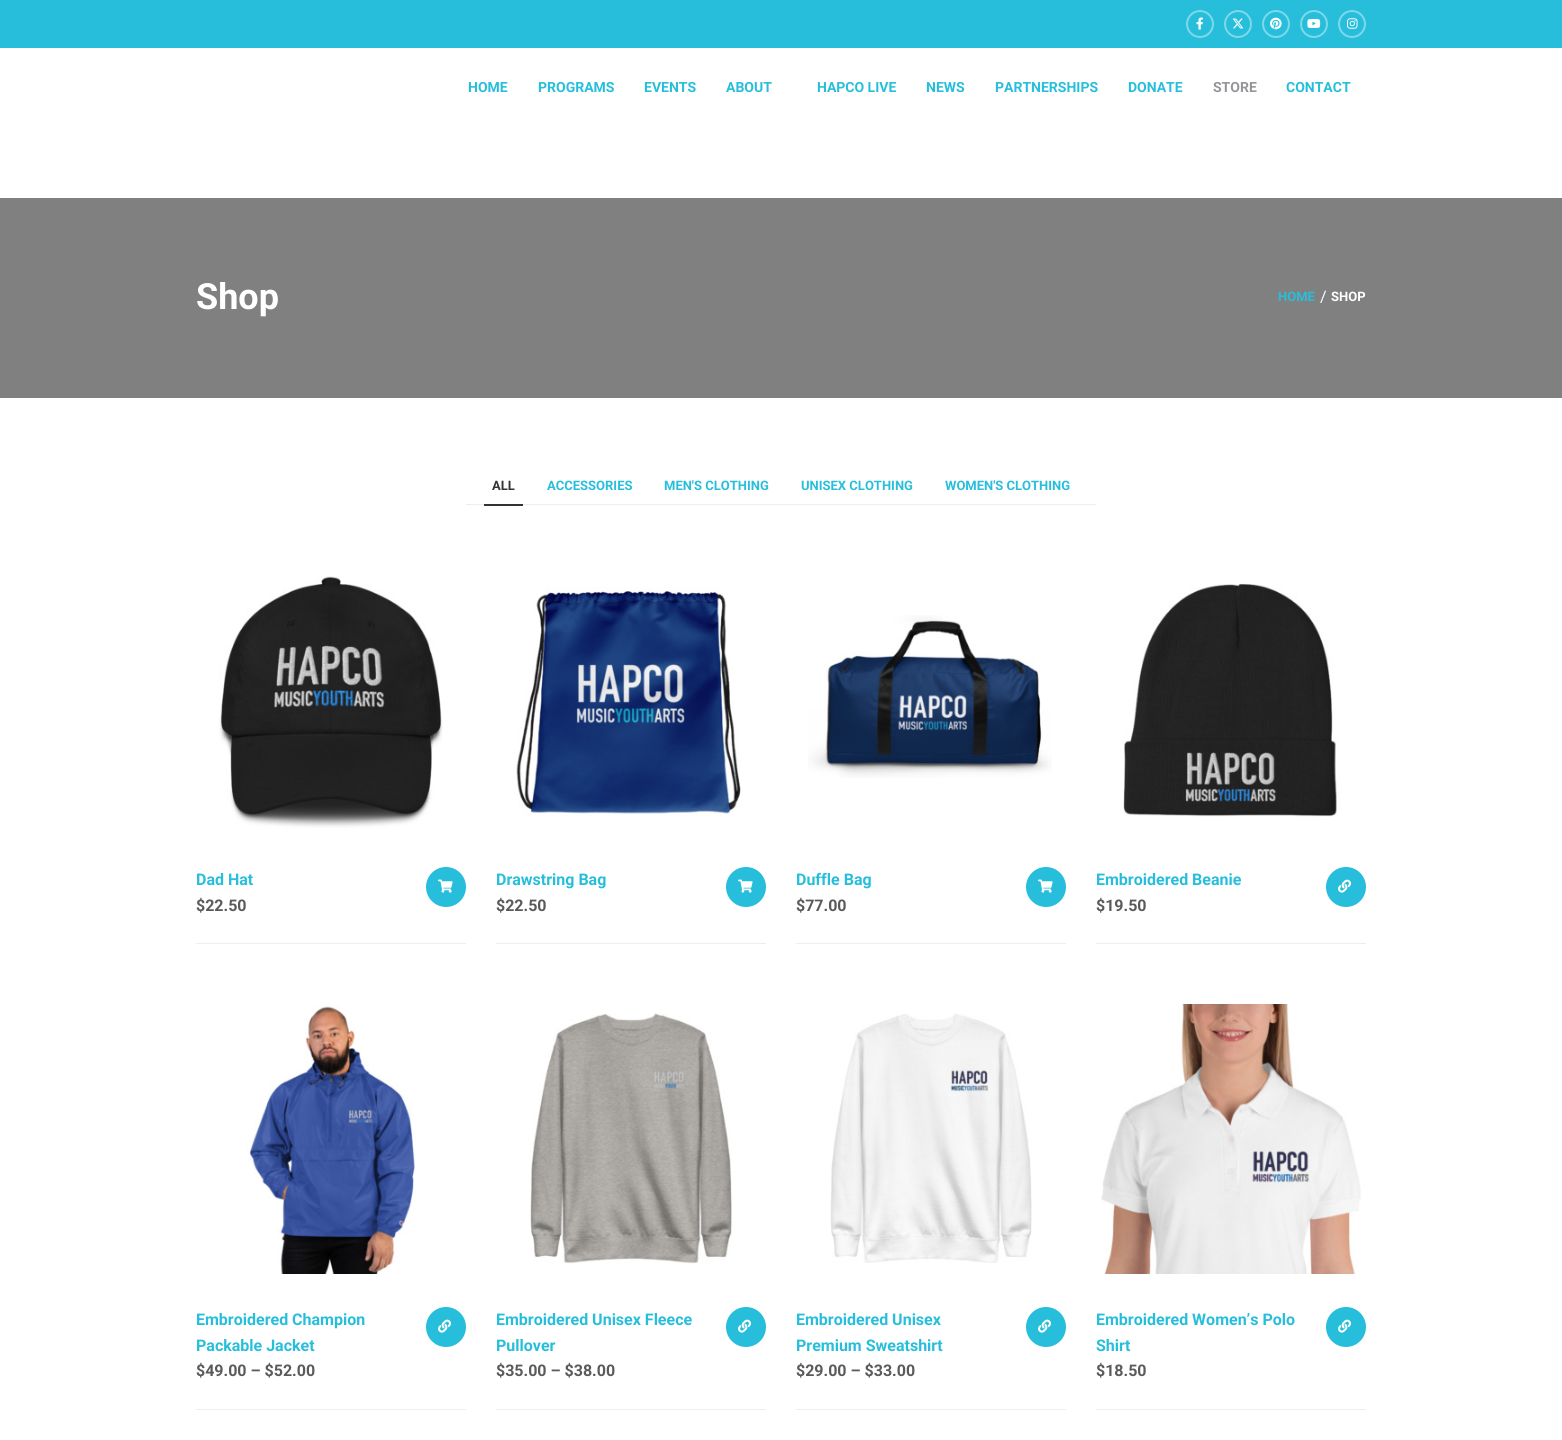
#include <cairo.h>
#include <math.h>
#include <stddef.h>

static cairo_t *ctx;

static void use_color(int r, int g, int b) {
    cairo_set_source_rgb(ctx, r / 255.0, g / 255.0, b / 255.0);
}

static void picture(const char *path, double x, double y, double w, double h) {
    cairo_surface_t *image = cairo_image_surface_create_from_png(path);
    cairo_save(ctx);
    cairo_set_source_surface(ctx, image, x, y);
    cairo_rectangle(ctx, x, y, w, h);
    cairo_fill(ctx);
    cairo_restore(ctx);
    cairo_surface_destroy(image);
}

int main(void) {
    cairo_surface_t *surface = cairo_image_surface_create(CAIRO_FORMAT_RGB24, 1562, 1440);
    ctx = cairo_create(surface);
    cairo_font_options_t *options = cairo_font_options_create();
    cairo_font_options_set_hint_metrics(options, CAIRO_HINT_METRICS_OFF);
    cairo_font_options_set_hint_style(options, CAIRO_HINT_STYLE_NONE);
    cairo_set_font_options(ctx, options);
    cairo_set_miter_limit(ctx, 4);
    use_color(39, 190, 219);
    cairo_paint(ctx);
    cairo_arc(ctx, 1200, 24, 13, 0, 2 * M_PI);
    use_color(125, 216, 233);
    cairo_stroke(ctx);
    picture("img1.png", 1196, 17, 7, 13);
    cairo_arc(ctx, 1238, 24, 13, 0, 2 * M_PI);
    cairo_stroke(ctx);
    picture("img2.png", 1232, 18, 12, 11);
    cairo_arc(ctx, 1276, 24, 13, 0, 2 * M_PI);
    cairo_stroke(ctx);
    picture("img3.png", 1270, 17, 12, 13);
    cairo_arc(ctx, 1314, 24, 13, 0, 2 * M_PI);
    cairo_stroke(ctx);
    picture("img4.png", 1307, 19, 14, 9);
    cairo_arc(ctx, 1352, 24, 13, 0, 2 * M_PI);
    cairo_stroke(ctx);
    picture("img5.png", 1347, 18, 11, 11);
    use_color(255, 255, 255);
    cairo_rectangle(ctx, 0, 48, 1562, 1392);
    cairo_fill(ctx);
    cairo_select_font_face(ctx, "Roboto", CAIRO_FONT_SLANT_NORMAL, CAIRO_FONT_WEIGHT_BOLD);
    cairo_set_font_size(ctx, 14);
    use_color(39, 190, 219);
    cairo_move_to(ctx, 468, 92);
    cairo_show_text(ctx, "HOME");
    cairo_move_to(ctx, 538, 92);
    cairo_show_text(ctx, "PROGRAMS");
    cairo_move_to(ctx, 644, 92);
    cairo_show_text(ctx, "EVENTS");
    cairo_move_to(ctx, 726, 92);
    cairo_show_text(ctx, "ABOUT");
    cairo_move_to(ctx, 817, 92);
    cairo_show_text(ctx, "HAPCO LIVE");
    cairo_move_to(ctx, 926, 92);
    cairo_show_text(ctx, "NEWS");
    cairo_move_to(ctx, 995, 92);
    cairo_show_text(ctx, "PARTNERSHIPS");
    cairo_move_to(ctx, 1128, 92);
    cairo_show_text(ctx, "DONATE");
    use_color(148, 149, 153);
    cairo_move_to(ctx, 1213, 92);
    cairo_show_text(ctx, "STORE");
    use_color(39, 190, 219);
    cairo_move_to(ctx, 1286, 92);
    cairo_show_text(ctx, "CONTACT");
    use_color(128, 128, 128);
    cairo_rectangle(ctx, 0, 198, 1562, 200);
    cairo_fill(ctx);
    cairo_set_font_size(ctx, 36);
    use_color(255, 255, 255);
    cairo_move_to(ctx, 196, 309);
    cairo_show_text(ctx, "Shop");
    cairo_set_font_size(ctx, 13);
    use_color(39, 190, 219);
    cairo_move_to(ctx, 1278, 301);
    cairo_show_text(ctx, "HOME");
    cairo_select_font_face(ctx, "Roboto", CAIRO_FONT_SLANT_NORMAL, CAIRO_FONT_WEIGHT_NORMAL);
    cairo_set_font_size(ctx, 16);
    use_color(255, 255, 255);
    cairo_move_to(ctx, 1320, 302);
    cairo_show_text(ctx, "/");
    cairo_select_font_face(ctx, "Roboto", CAIRO_FONT_SLANT_NORMAL, CAIRO_FONT_WEIGHT_BOLD);
    cairo_set_font_size(ctx, 13);
    cairo_move_to(ctx, 1331, 301);
    cairo_show_text(ctx, "SHOP");
    use_color(238, 238, 238);
    cairo_rectangle(ctx, 466, 504, 630, 1);
    cairo_fill(ctx);
    use_color(51, 51, 51);
    cairo_rectangle(ctx, 484, 504, 39, 2);
    cairo_fill(ctx);
    cairo_move_to(ctx, 492, 490);
    cairo_show_text(ctx, "ALL");
    use_color(39, 190, 219);
    cairo_move_to(ctx, 547, 490);
    cairo_show_text(ctx, "ACCESSORIES");
    cairo_move_to(ctx, 664, 490);
    cairo_show_text(ctx, "MEN'S CLOTHING");
    cairo_move_to(ctx, 801, 490);
    cairo_show_text(ctx, "UNISEX CLOTHING");
    cairo_move_to(ctx, 945, 490);
    cairo_show_text(ctx, "WOMEN'S CLOTHING");
    use_color(238, 238, 238);
    cairo_rectangle(ctx, 196, 943, 270, 1);
    cairo_fill(ctx);
    picture("img6.png", 219, 576, 224, 252);
    cairo_set_font_size(ctx, 16);
    use_color(39, 190, 219);
    cairo_move_to(ctx, 196, 885);
    cairo_show_text(ctx, "Dad Hat");
    cairo_new_path(ctx);
    cairo_arc(ctx, 446, 887, 20, 0, 2 * M_PI);
    cairo_fill(ctx);
    picture("img7.png", 438, 879, 15, 14);
    use_color(90, 90, 90);
    cairo_move_to(ctx, 196, 911);
    cairo_show_text(ctx, "$22.50");
    use_color(238, 238, 238);
    cairo_rectangle(ctx, 496, 943, 270, 1);
    cairo_fill(ctx);
    picture("img8.png", 516, 587, 225, 230);
    use_color(39, 190, 219);
    cairo_move_to(ctx, 496, 885);
    cairo_show_text(ctx, "Drawstring Bag");
    cairo_new_path(ctx);
    cairo_arc(ctx, 746, 887, 20, 0, 2 * M_PI);
    cairo_fill(ctx);
    picture("img7.png", 738, 879, 15, 14);
    use_color(90, 90, 90);
    cairo_move_to(ctx, 496, 911);
    cairo_show_text(ctx, "$22.50");
    use_color(238, 238, 238);
    cairo_rectangle(ctx, 796, 943, 270, 1);
    cairo_fill(ctx);
    picture("img9.png", 808, 615, 244, 163);
    use_color(39, 190, 219);
    cairo_move_to(ctx, 796, 885);
    cairo_show_text(ctx, "Duffle Bag");
    cairo_new_path(ctx);
    cairo_arc(ctx, 1046, 887, 20, 0, 2 * M_PI);
    cairo_fill(ctx);
    picture("img7.png", 1038, 879, 15, 14);
    use_color(90, 90, 90);
    cairo_move_to(ctx, 796, 911);
    cairo_show_text(ctx, "$77.00");
    use_color(238, 238, 238);
    cairo_rectangle(ctx, 1096, 943, 270, 1);
    cairo_fill(ctx);
    picture("img10.png", 1123, 583, 214, 234);
    use_color(39, 190, 219);
    cairo_move_to(ctx, 1096, 885);
    cairo_show_text(ctx, "Embroidered Beanie");
    cairo_new_path(ctx);
    cairo_arc(ctx, 1346, 887, 20, 0, 2 * M_PI);
    cairo_fill(ctx);
    picture("img11.png", 1338, 879, 13, 14);
    use_color(90, 90, 90);
    cairo_move_to(ctx, 1096, 911);
    cairo_show_text(ctx, "$19.50");
    use_color(238, 238, 238);
    cairo_rectangle(ctx, 196, 1409, 270, 1);
    cairo_fill(ctx);
    picture("img12.png", 247, 1004, 169, 270);
    use_color(39, 190, 219);
    cairo_move_to(ctx, 196, 1325);
    cairo_show_text(ctx, "Embroidered Champion");
    cairo_move_to(ctx, 196, 1351);
    cairo_show_text(ctx, "Packable Jacket");
    cairo_new_path(ctx);
    cairo_arc(ctx, 446, 1327, 20, 0, 2 * M_PI);
    cairo_fill(ctx);
    picture("img11.png", 438, 1319, 13, 14);
    use_color(90, 90, 90);
    cairo_move_to(ctx, 196, 1376);
    cairo_show_text(ctx, "$49.00 – $52.00");
    use_color(238, 238, 238);
    cairo_rectangle(ctx, 496, 1409, 270, 1);
    cairo_fill(ctx);
    picture("img13.png", 530, 1013, 202, 251);
    use_color(39, 190, 219);
    cairo_move_to(ctx, 496, 1325);
    cairo_show_text(ctx, "Embroidered Unisex Fleece");
    cairo_move_to(ctx, 496, 1351);
    cairo_show_text(ctx, "Pullover");
    cairo_new_path(ctx);
    cairo_arc(ctx, 746, 1327, 20, 0, 2 * M_PI);
    cairo_fill(ctx);
    picture("img11.png", 738, 1319, 13, 14);
    use_color(90, 90, 90);
    cairo_move_to(ctx, 496, 1376);
    cairo_show_text(ctx, "$35.00 – $38.00");
    use_color(238, 238, 238);
    cairo_rectangle(ctx, 796, 1409, 270, 1);
    cairo_fill(ctx);
    picture("img14.png", 830, 1013, 202, 250);
    use_color(39, 190, 219);
    cairo_move_to(ctx, 796, 1325);
    cairo_show_text(ctx, "Embroidered Unisex");
    cairo_move_to(ctx, 796, 1351);
    cairo_show_text(ctx, "Premium Sweatshirt");
    cairo_new_path(ctx);
    cairo_arc(ctx, 1046, 1327, 20, 0, 2 * M_PI);
    cairo_fill(ctx);
    picture("img11.png", 1038, 1319, 13, 14);
    use_color(90, 90, 90);
    cairo_move_to(ctx, 796, 1376);
    cairo_show_text(ctx, "$29.00 – $33.00");
    use_color(238, 238, 238);
    cairo_rectangle(ctx, 1096, 1409, 270, 1);
    cairo_fill(ctx);
    picture("img15.png", 1101, 1004, 260, 270);
    use_color(39, 190, 219);
    cairo_move_to(ctx, 1096, 1325);
    cairo_show_text(ctx, "Embroidered Women’s Polo");
    cairo_move_to(ctx, 1096, 1351);
    cairo_show_text(ctx, "Shirt");
    cairo_new_path(ctx);
    cairo_arc(ctx, 1346, 1327, 20, 0, 2 * M_PI);
    cairo_fill(ctx);
    picture("img11.png", 1338, 1319, 13, 14);
    use_color(90, 90, 90);
    cairo_move_to(ctx, 1096, 1376);
    cairo_show_text(ctx, "$18.50");
    cairo_surface_write_to_png(surface, "result.png");
    cairo_font_options_destroy(options);
    cairo_destroy(ctx);
    cairo_surface_destroy(surface);
    return 0;
}
